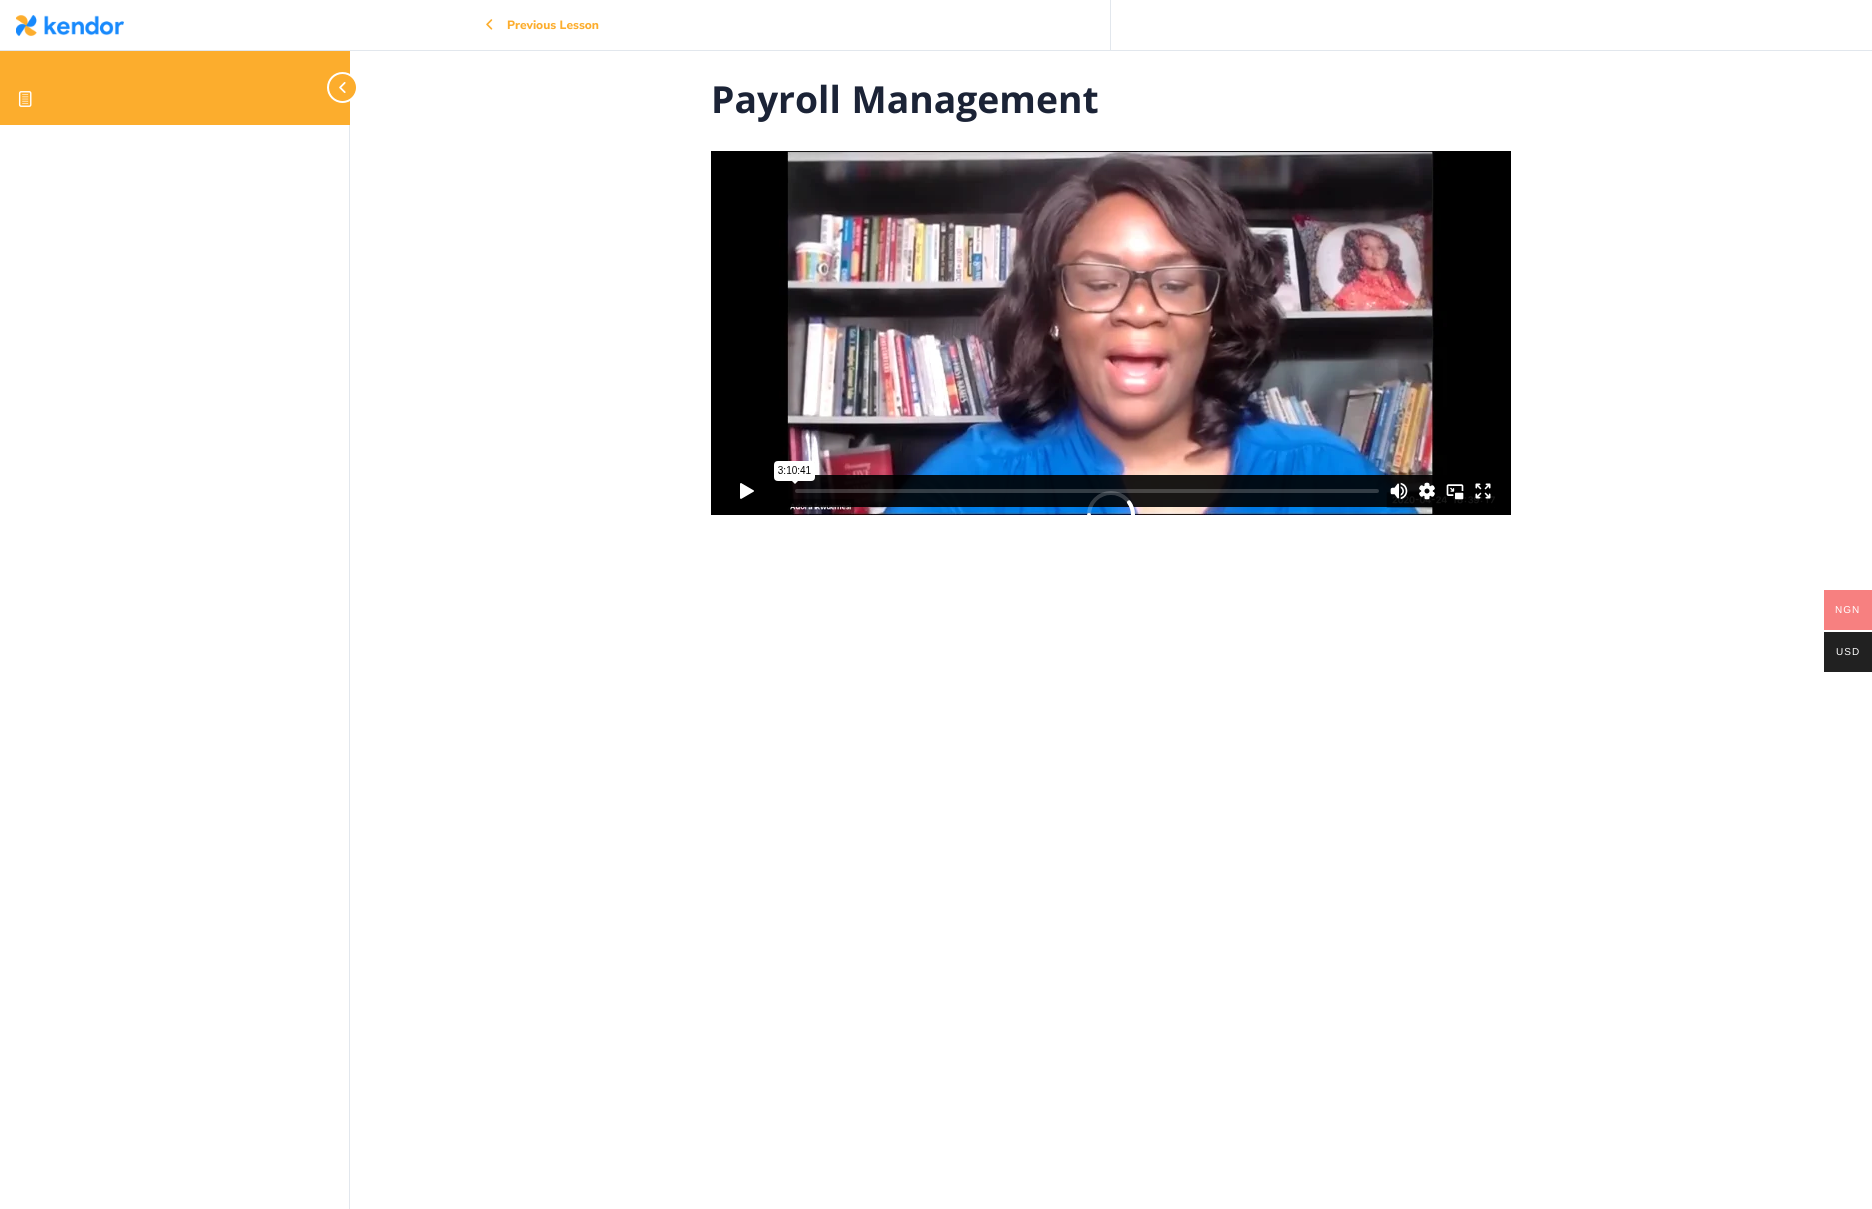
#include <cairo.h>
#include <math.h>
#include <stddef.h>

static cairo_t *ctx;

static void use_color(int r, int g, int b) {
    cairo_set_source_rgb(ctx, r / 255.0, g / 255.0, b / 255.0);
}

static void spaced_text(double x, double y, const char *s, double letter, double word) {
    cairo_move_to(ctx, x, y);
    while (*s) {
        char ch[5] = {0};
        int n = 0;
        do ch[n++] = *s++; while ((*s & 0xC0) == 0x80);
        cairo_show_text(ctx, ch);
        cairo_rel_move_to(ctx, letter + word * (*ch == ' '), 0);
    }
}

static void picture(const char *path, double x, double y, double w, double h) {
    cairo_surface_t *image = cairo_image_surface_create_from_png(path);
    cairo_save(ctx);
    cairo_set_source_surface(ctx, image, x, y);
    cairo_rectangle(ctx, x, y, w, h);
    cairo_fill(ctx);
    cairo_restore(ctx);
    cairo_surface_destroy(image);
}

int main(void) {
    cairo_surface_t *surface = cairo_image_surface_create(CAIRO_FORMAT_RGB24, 1872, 1209);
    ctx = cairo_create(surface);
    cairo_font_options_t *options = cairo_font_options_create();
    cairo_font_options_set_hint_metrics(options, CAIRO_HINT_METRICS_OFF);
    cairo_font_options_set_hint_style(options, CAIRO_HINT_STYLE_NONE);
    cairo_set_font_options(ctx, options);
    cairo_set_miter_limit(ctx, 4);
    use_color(255, 255, 255);
    cairo_paint(ctx);
    use_color(226, 231, 237);
    cairo_rectangle(ctx, 349, 125, 1, 1084);
    cairo_fill(ctx);
    use_color(252, 173, 45);
    cairo_rectangle(ctx, 0, 51, 350, 74);
    cairo_fill(ctx);
    picture("img1.png", 18, 91, 14, 16);
    cairo_arc(ctx, 342.5, 87.5, 14.5, 0, 2 * M_PI);
    cairo_fill_preserve(ctx);
    use_color(255, 255, 255);
    cairo_stroke(ctx);
    picture("img2.png", 339, 82, 7, 11);
    use_color(226, 231, 237);
    cairo_rectangle(ctx, 0, 50, 1872, 1);
    cairo_fill(ctx);
    picture("img3.png", 16, 15, 108, 22);
    cairo_rectangle(ctx, 1110, 0, 1, 50);
    cairo_fill(ctx);
    picture("img4.png", 486, 19, 7, 11);
    cairo_select_font_face(ctx, "Nunito Sans ExtraBold", CAIRO_FONT_SLANT_NORMAL, CAIRO_FONT_WEIGHT_NORMAL);
    cairo_set_font_size(ctx, 12);
    use_color(252, 173, 45);
    cairo_move_to(ctx, 507, 29);
    cairo_show_text(ctx, "Previous Lesson");
    cairo_select_font_face(ctx, "Khula", CAIRO_FONT_SLANT_NORMAL, CAIRO_FONT_WEIGHT_BOLD);
    cairo_set_font_size(ctx, 40);
    use_color(27, 35, 54);
    cairo_move_to(ctx, 711, 113);
    cairo_show_text(ctx, "Payroll Management");
    picture("img5.png", 711, 151, 800, 364);
    use_color(247, 128, 128);
    cairo_rectangle(ctx, 1824, 590, 48, 40);
    cairo_fill(ctx);
    cairo_select_font_face(ctx, "Liberation Sans", CAIRO_FONT_SLANT_NORMAL, CAIRO_FONT_WEIGHT_NORMAL);
    cairo_set_font_size(ctx, 10);
    use_color(255, 255, 255);
    spaced_text(1835, 613, "NGN", 1, 0);
    use_color(33, 33, 33);
    cairo_rectangle(ctx, 1824, 632, 48, 40);
    cairo_fill(ctx);
    use_color(255, 255, 255);
    spaced_text(1836, 655, "USD", 1, 0);
    cairo_surface_write_to_png(surface, "result.png");
    cairo_font_options_destroy(options);
    cairo_destroy(ctx);
    cairo_surface_destroy(surface);
    return 0;
}
